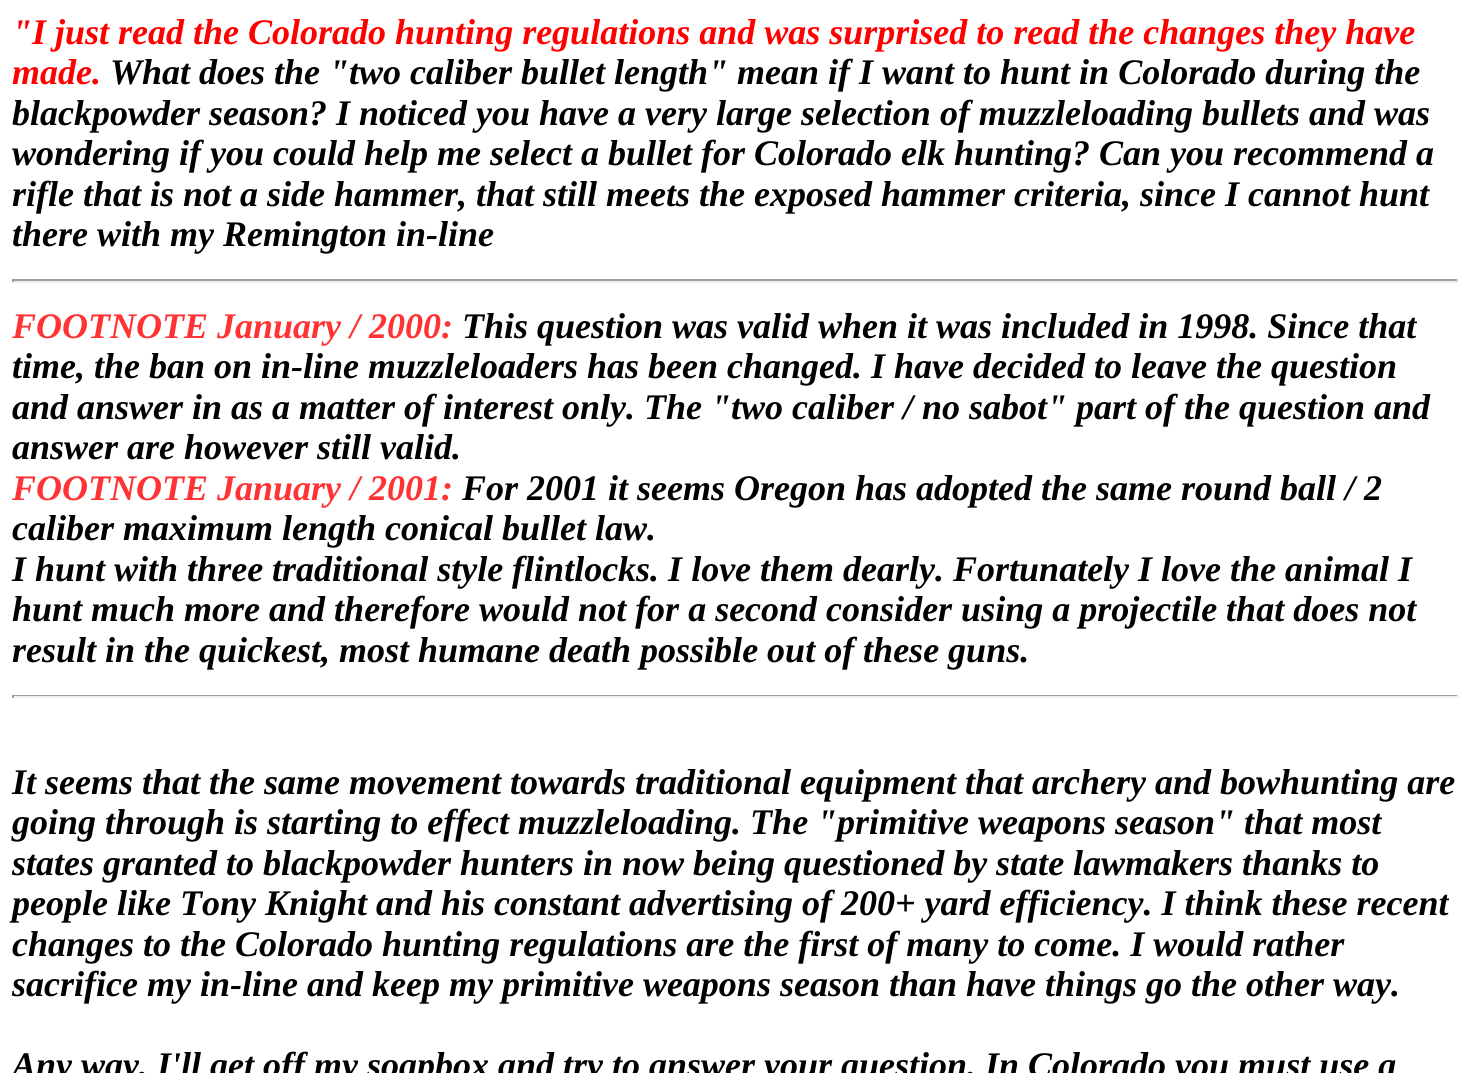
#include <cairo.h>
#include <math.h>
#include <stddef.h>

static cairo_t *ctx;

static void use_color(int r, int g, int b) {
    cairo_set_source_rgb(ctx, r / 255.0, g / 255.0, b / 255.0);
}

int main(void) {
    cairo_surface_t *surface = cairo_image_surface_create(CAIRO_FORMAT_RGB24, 1470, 1073);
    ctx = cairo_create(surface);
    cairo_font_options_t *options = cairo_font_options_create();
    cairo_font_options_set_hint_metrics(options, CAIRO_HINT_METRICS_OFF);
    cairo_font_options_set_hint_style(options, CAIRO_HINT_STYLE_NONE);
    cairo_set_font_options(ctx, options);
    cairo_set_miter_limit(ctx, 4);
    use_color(255, 255, 255);
    cairo_paint(ctx);
    cairo_select_font_face(ctx, "Liberation Serif", CAIRO_FONT_SLANT_ITALIC, CAIRO_FONT_WEIGHT_BOLD);
    cairo_set_font_size(ctx, 36);
    use_color(255, 0, 0);
    cairo_move_to(ctx, 12, 44);
    cairo_show_text(ctx, "\"I just read the Colorado hunting regulations and was surprised to read the changes they have");
    cairo_move_to(ctx, 12, 84);
    cairo_show_text(ctx, "made.");
    use_color(0, 0, 0);
    cairo_move_to(ctx, 110, 84);
    cairo_show_text(ctx, "What does the \"two caliber bullet length\" mean if I want to hunt in Colorado during the");
    cairo_move_to(ctx, 12, 125);
    cairo_show_text(ctx, "blackpowder season? I noticed you have a very large selection of muzzleloading bullets and was");
    cairo_move_to(ctx, 12, 165);
    cairo_show_text(ctx, "wondering if you could help me select a bullet for Colorado elk hunting? Can you recommend a");
    cairo_move_to(ctx, 12, 206);
    cairo_show_text(ctx, "rifle that is not a side hammer, that still meets the exposed hammer criteria, since I cannot hunt");
    cairo_move_to(ctx, 12, 246);
    cairo_show_text(ctx, "there with my Remington in-line");
    use_color(159, 159, 159);
    cairo_rectangle(ctx, 12, 279, 1446, 2);
    cairo_fill(ctx);
    use_color(238, 238, 238);
    cairo_rectangle(ctx, 1457, 279, 2, 3);
    cairo_fill(ctx);
    cairo_rectangle(ctx, 12, 281, 1446, 2);
    cairo_fill(ctx);
    use_color(159, 159, 159);
    cairo_rectangle(ctx, 12, 279, 2, 3);
    cairo_fill(ctx);
    use_color(255, 51, 51);
    cairo_move_to(ctx, 12, 338);
    cairo_show_text(ctx, "FOOTNOTE January / 2000:");
    use_color(0, 0, 0);
    cairo_move_to(ctx, 462, 338);
    cairo_show_text(ctx, "This question was valid when it was included in 1998. Since that");
    cairo_move_to(ctx, 12, 378);
    cairo_show_text(ctx, "time, the ban on in-line muzzleloaders has been changed. I have decided to leave the question");
    cairo_move_to(ctx, 12, 419);
    cairo_show_text(ctx, "and answer in as a matter of interest only. The \"two caliber / no sabot\" part of the question and");
    cairo_move_to(ctx, 12, 459);
    cairo_show_text(ctx, "answer are however still valid.");
    use_color(255, 51, 51);
    cairo_move_to(ctx, 12, 500);
    cairo_show_text(ctx, "FOOTNOTE January / 2001:");
    use_color(0, 0, 0);
    cairo_move_to(ctx, 462, 500);
    cairo_show_text(ctx, "For 2001 it seems Oregon has adopted the same round ball / 2");
    cairo_move_to(ctx, 12, 540);
    cairo_show_text(ctx, "caliber maximum length conical bullet law.");
    cairo_move_to(ctx, 12, 581);
    cairo_show_text(ctx, "I hunt with three traditional style flintlocks. I love them dearly. Fortunately I love the animal I");
    cairo_move_to(ctx, 12, 621);
    cairo_show_text(ctx, "hunt much more and therefore would not for a second consider using a projectile that does not");
    cairo_move_to(ctx, 12, 662);
    cairo_show_text(ctx, "result in the quickest, most humane death possible out of these guns.");
    use_color(159, 159, 159);
    cairo_rectangle(ctx, 12, 695, 1446, 1);
    cairo_fill(ctx);
    use_color(238, 238, 238);
    cairo_rectangle(ctx, 1457, 695, 2, 3);
    cairo_fill(ctx);
    cairo_rectangle(ctx, 12, 696, 1446, 2);
    cairo_fill(ctx);
    use_color(159, 159, 159);
    cairo_rectangle(ctx, 12, 695, 2, 3);
    cairo_fill(ctx);
    use_color(0, 0, 0);
    cairo_move_to(ctx, 12, 794);
    cairo_show_text(ctx, "It seems that the same movement towards traditional equipment that archery and bowhunting are");
    cairo_move_to(ctx, 12, 834);
    cairo_show_text(ctx, "going through is starting to effect muzzleloading. The \"primitive weapons season\" that most");
    cairo_move_to(ctx, 12, 875);
    cairo_show_text(ctx, "states granted to blackpowder hunters in now being questioned by state lawmakers thanks to");
    cairo_move_to(ctx, 12, 915);
    cairo_show_text(ctx, "people like Tony Knight and his constant advertising of 200+ yard efficiency. I think these recent");
    cairo_move_to(ctx, 12, 956);
    cairo_show_text(ctx, "changes to the Colorado hunting regulations are the first of many to come. I would rather");
    cairo_move_to(ctx, 12, 996);
    cairo_show_text(ctx, "sacrifice my in-line and keep my primitive weapons season than have things go the other way.");
    cairo_move_to(ctx, 12, 1077);
    cairo_show_text(ctx, "Any way, I'll get off my soapbox and try to answer your question. In Colorado you must use a");
    cairo_surface_write_to_png(surface, "result.png");
    cairo_font_options_destroy(options);
    cairo_destroy(ctx);
    cairo_surface_destroy(surface);
    return 0;
}
